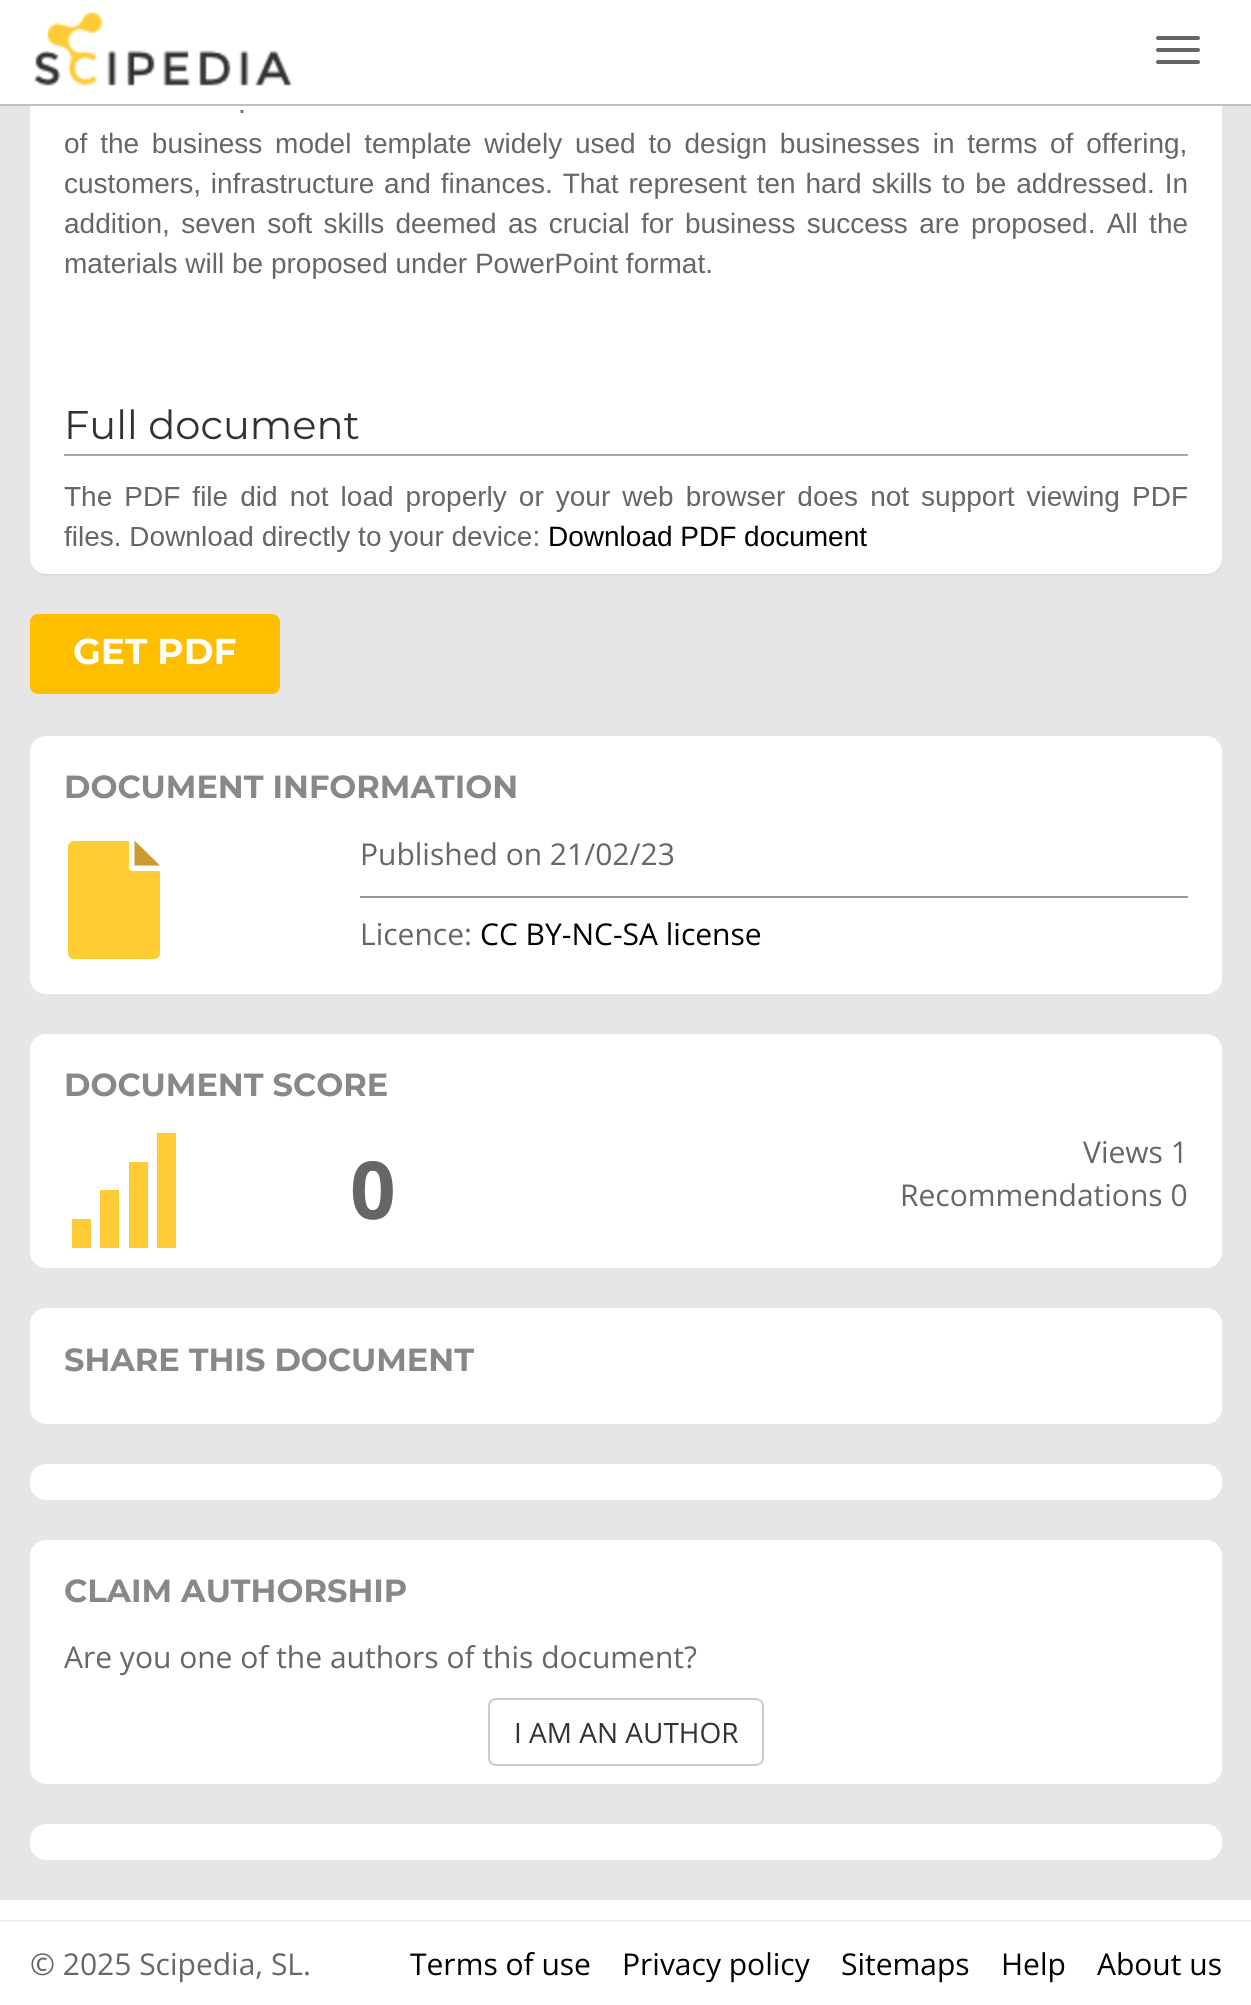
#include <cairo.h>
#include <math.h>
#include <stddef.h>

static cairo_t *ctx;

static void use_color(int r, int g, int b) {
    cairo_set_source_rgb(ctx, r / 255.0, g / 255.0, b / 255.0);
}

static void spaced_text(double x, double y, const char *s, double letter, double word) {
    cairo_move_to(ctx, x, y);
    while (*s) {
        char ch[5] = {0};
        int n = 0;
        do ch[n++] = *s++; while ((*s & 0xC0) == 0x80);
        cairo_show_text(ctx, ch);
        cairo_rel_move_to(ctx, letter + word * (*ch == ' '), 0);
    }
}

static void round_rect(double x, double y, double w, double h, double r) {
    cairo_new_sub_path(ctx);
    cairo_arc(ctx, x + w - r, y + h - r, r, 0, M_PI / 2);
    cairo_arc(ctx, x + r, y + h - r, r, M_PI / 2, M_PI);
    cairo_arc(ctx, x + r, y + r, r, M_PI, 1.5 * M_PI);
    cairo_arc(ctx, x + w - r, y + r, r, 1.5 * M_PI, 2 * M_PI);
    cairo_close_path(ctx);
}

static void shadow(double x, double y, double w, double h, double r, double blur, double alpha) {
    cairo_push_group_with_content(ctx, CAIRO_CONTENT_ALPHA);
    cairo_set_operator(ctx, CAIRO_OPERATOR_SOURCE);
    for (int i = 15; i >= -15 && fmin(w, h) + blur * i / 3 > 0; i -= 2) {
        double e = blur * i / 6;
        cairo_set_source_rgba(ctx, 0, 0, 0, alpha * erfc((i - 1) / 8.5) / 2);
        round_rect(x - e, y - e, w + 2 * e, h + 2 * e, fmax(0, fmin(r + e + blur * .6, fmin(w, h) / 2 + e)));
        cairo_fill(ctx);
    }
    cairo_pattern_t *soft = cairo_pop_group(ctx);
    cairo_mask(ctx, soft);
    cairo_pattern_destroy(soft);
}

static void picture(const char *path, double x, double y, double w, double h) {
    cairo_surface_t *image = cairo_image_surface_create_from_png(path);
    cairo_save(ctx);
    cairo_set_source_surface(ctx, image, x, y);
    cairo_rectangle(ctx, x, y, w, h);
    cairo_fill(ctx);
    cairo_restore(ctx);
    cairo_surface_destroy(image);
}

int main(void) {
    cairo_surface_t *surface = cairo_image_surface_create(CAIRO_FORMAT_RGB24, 1251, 2005);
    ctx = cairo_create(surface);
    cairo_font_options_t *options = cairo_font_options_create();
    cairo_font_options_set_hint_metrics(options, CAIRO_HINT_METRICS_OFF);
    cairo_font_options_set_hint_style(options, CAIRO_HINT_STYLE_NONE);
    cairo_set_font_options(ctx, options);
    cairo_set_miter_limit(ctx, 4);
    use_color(255, 255, 255);
    cairo_paint(ctx);
    use_color(230, 230, 230);
    cairo_rectangle(ctx, 0, 106, 1251, 1794);
    cairo_fill(ctx);
    use_color(0, 0, 0);
    shadow(30, -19, 1192, 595, 16, 1, 0.05);
    use_color(255, 255, 255);
    round_rect(30, -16, 1192, 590, 16);
    cairo_fill(ctx);
    cairo_rectangle(ctx, 29, 0, 1194, 104);
    cairo_fill(ctx);
    use_color(190, 192, 193);
    cairo_rectangle(ctx, 0, 104, 1251, 2);
    cairo_fill(ctx);
    picture("img1.png", 33, 11, 260, 75);
    use_color(102, 102, 102);
    round_rect(1156, 36, 44, 4, 2);
    cairo_fill(ctx);
    round_rect(1156, 48, 44, 4, 2);
    cairo_fill(ctx);
    round_rect(1156, 60, 44, 4, 2);
    cairo_fill(ctx);
    cairo_select_font_face(ctx, "Liberation Sans", CAIRO_FONT_SLANT_NORMAL, CAIRO_FONT_WEIGHT_NORMAL);
    cairo_set_font_size(ctx, 28);
    spaced_text(238, 113, ".", 0, 2);
    spaced_text(64, 153, "of the business model template widely used to design businesses in terms of offering,", 0, 5);
    spaced_text(64, 193, "customers, infrastructure and finances. That represent ten hard skills to be addressed. In", 0, 2.1);
    spaced_text(64, 233, "addition, seven soft skills deemed as crucial for business success are proposed. All the", 0, 3.5);
    cairo_move_to(ctx, 64, 273);
    cairo_show_text(ctx, "materials will be proposed under PowerPoint format.");
    use_color(170, 170, 170);
    cairo_rectangle(ctx, 64, 454, 1124, 2);
    cairo_fill(ctx);
    cairo_select_font_face(ctx, "Montserrat", CAIRO_FONT_SLANT_NORMAL, CAIRO_FONT_WEIGHT_NORMAL);
    cairo_set_font_size(ctx, 40);
    use_color(51, 51, 51);
    cairo_move_to(ctx, 64, 439);
    cairo_show_text(ctx, "Full document");
    picture("img2.png", 64, 486, 1123, 66);
    cairo_select_font_face(ctx, "Liberation Sans", CAIRO_FONT_SLANT_NORMAL, CAIRO_FONT_WEIGHT_NORMAL);
    cairo_set_font_size(ctx, 28);
    use_color(0, 0, 0);
    cairo_move_to(ctx, 548, 546);
    cairo_show_text(ctx, "Download PDF document");
    use_color(255, 191, 0);
    round_rect(30, 614, 250, 80, 8);
    cairo_fill(ctx);
    cairo_select_font_face(ctx, "Montserrat", CAIRO_FONT_SLANT_NORMAL, CAIRO_FONT_WEIGHT_BOLD);
    cairo_set_font_size(ctx, 36);
    use_color(255, 255, 255);
    cairo_move_to(ctx, 73, 664);
    cairo_show_text(ctx, "GET PDF");
    round_rect(30, 736, 1192, 258, 16);
    cairo_fill(ctx);
    cairo_set_font_size(ctx, 32);
    use_color(136, 136, 136);
    cairo_move_to(ctx, 64, 798);
    cairo_show_text(ctx, "DOCUMENT INFORMATION");
    use_color(255, 204, 51);
    cairo_new_path(ctx);
    cairo_move_to(ctx, 133, 871);
    cairo_curve_to(ctx, 131, 871, 129, 870, 129, 867);
    cairo_line_to(ctx, 129, 841);
    cairo_line_to(ctx, 74, 841);
    cairo_curve_to(ctx, 71, 841, 68, 844, 68, 847);
    cairo_line_to(ctx, 68, 953);
    cairo_curve_to(ctx, 68, 957, 71, 959, 74, 959);
    cairo_line_to(ctx, 153, 959);
    cairo_curve_to(ctx, 157, 959, 160, 957, 160, 953);
    cairo_line_to(ctx, 160, 871);
    cairo_close_path(ctx);
    cairo_fill(ctx);
    use_color(204, 153, 51);
    cairo_new_path(ctx);
    cairo_move_to(ctx, 160, 865.5);
    cairo_line_to(ctx, 134.5, 840.5);
    cairo_line_to(ctx, 134.5, 865.5);
    cairo_close_path(ctx);
    cairo_fill(ctx);
    cairo_select_font_face(ctx, "Open Sans", CAIRO_FONT_SLANT_NORMAL, CAIRO_FONT_WEIGHT_NORMAL);
    cairo_set_font_size(ctx, 30);
    use_color(102, 102, 102);
    cairo_move_to(ctx, 360, 865);
    cairo_show_text(ctx, "Published on 21/02/23");
    use_color(153, 153, 153);
    cairo_rectangle(ctx, 360, 896, 828, 2);
    cairo_fill(ctx);
    use_color(102, 102, 102);
    cairo_move_to(ctx, 360, 945);
    cairo_show_text(ctx, "Licence:");
    use_color(0, 0, 0);
    cairo_move_to(ctx, 480, 945);
    cairo_show_text(ctx, "CC BY-NC-SA license");
    use_color(255, 255, 255);
    round_rect(30, 1034, 1192, 234, 16);
    cairo_fill(ctx);
    cairo_select_font_face(ctx, "Montserrat", CAIRO_FONT_SLANT_NORMAL, CAIRO_FONT_WEIGHT_BOLD);
    cairo_set_font_size(ctx, 32);
    use_color(136, 136, 136);
    cairo_move_to(ctx, 64, 1096);
    cairo_show_text(ctx, "DOCUMENT SCORE");
    use_color(254, 203, 55);
    cairo_rectangle(ctx, 72, 1219, 19, 29);
    cairo_fill(ctx);
    cairo_rectangle(ctx, 100, 1190, 19, 58);
    cairo_fill(ctx);
    cairo_rectangle(ctx, 129, 1162, 19, 86);
    cairo_fill(ctx);
    cairo_rectangle(ctx, 157, 1133, 19, 115);
    cairo_fill(ctx);
    cairo_select_font_face(ctx, "Open Sans", CAIRO_FONT_SLANT_NORMAL, CAIRO_FONT_WEIGHT_BOLD);
    cairo_set_font_size(ctx, 80);
    use_color(102, 102, 102);
    cairo_move_to(ctx, 350, 1219);
    cairo_show_text(ctx, "0");
    cairo_select_font_face(ctx, "Open Sans", CAIRO_FONT_SLANT_NORMAL, CAIRO_FONT_WEIGHT_NORMAL);
    cairo_set_font_size(ctx, 30);
    cairo_move_to(ctx, 1083, 1163);
    cairo_show_text(ctx, "Views 1");
    cairo_move_to(ctx, 900, 1206);
    cairo_show_text(ctx, "Recommendations 0");
    use_color(255, 255, 255);
    round_rect(30, 1308, 1192, 116, 16);
    cairo_fill(ctx);
    cairo_select_font_face(ctx, "Montserrat", CAIRO_FONT_SLANT_NORMAL, CAIRO_FONT_WEIGHT_BOLD);
    cairo_set_font_size(ctx, 32);
    use_color(136, 136, 136);
    cairo_move_to(ctx, 64, 1371);
    cairo_show_text(ctx, "SHARE THIS DOCUMENT");
    use_color(255, 255, 255);
    round_rect(30, 1464, 1192, 36, 16);
    cairo_fill(ctx);
    round_rect(30, 1540, 1192, 244, 16);
    cairo_fill(ctx);
    use_color(136, 136, 136);
    cairo_move_to(ctx, 64, 1602);
    cairo_show_text(ctx, "CLAIM AUTHORSHIP");
    cairo_select_font_face(ctx, "Open Sans", CAIRO_FONT_SLANT_NORMAL, CAIRO_FONT_WEIGHT_NORMAL);
    cairo_set_font_size(ctx, 30);
    use_color(102, 102, 102);
    cairo_move_to(ctx, 64, 1668);
    cairo_show_text(ctx, "Are you one of the authors of this document?");
    round_rect(489, 1699, 274, 66, 7);
    use_color(204, 204, 204);
    cairo_stroke(ctx);
    cairo_set_font_size(ctx, 28);
    use_color(51, 51, 51);
    cairo_move_to(ctx, 514, 1743);
    cairo_show_text(ctx, "I AM AN AUTHOR");
    use_color(255, 255, 255);
    round_rect(30, 1824, 1192, 36, 16);
    cairo_fill(ctx);
    use_color(238, 238, 238);
    cairo_rectangle(ctx, 0, 1920, 1251, 2);
    cairo_fill(ctx);
    cairo_set_font_size(ctx, 30);
    use_color(102, 102, 102);
    cairo_move_to(ctx, 30, 1975);
    cairo_show_text(ctx, "© 2025 Scipedia, SL.");
    use_color(0, 0, 0);
    cairo_move_to(ctx, 410, 1975);
    cairo_show_text(ctx, "Terms of use");
    cairo_move_to(ctx, 622, 1975);
    cairo_show_text(ctx, "Privacy policy");
    cairo_move_to(ctx, 841, 1975);
    cairo_show_text(ctx, "Sitemaps");
    cairo_move_to(ctx, 1001, 1975);
    cairo_show_text(ctx, "Help");
    cairo_move_to(ctx, 1097, 1975);
    cairo_show_text(ctx, "About us");
    cairo_surface_write_to_png(surface, "result.png");
    cairo_font_options_destroy(options);
    cairo_destroy(ctx);
    cairo_surface_destroy(surface);
    return 0;
}
